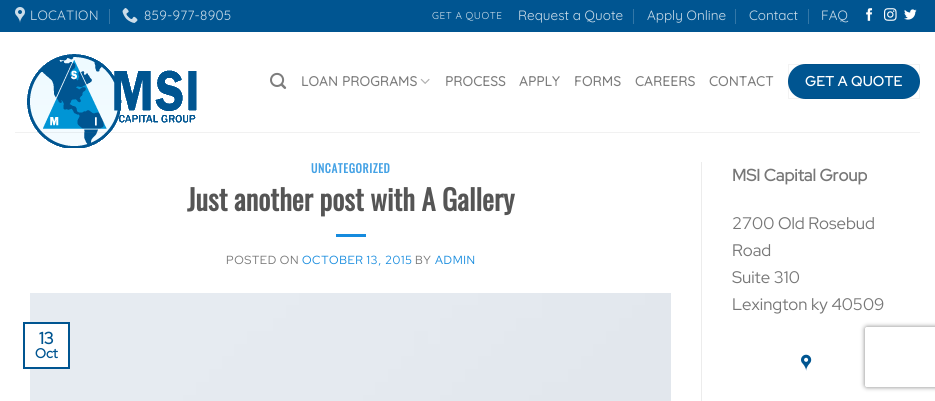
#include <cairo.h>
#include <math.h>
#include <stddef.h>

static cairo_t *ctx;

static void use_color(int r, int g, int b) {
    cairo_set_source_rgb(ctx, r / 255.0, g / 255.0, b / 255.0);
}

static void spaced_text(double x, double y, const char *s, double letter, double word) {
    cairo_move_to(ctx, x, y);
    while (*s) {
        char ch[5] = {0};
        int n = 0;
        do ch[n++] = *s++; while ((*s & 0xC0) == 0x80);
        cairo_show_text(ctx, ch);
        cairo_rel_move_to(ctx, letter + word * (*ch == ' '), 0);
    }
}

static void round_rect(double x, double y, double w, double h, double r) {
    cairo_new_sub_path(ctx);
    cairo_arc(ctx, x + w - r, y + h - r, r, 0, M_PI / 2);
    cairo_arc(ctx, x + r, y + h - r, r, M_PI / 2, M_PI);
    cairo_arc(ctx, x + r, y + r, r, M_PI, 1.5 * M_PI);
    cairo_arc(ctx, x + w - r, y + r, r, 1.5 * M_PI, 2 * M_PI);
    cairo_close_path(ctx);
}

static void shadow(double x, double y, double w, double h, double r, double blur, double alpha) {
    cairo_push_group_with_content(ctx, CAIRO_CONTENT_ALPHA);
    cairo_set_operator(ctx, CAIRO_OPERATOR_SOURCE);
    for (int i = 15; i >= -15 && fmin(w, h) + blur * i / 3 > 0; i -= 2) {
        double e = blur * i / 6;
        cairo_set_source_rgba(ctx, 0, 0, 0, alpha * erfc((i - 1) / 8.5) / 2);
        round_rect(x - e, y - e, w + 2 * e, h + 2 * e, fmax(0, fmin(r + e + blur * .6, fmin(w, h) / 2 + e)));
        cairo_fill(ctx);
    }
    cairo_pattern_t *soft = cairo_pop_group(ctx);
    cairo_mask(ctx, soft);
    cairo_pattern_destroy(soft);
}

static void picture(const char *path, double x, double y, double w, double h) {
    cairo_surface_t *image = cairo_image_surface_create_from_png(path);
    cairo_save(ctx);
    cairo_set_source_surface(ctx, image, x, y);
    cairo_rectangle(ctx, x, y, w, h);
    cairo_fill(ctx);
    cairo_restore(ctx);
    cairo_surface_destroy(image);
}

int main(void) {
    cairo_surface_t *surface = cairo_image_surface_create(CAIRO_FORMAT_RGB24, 935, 401);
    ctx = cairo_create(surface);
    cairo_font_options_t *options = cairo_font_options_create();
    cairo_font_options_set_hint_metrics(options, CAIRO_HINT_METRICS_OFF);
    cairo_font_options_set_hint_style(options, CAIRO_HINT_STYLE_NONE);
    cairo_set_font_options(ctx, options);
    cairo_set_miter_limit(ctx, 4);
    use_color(255, 255, 255);
    cairo_paint(ctx);
    use_color(0, 85, 145);
    cairo_rectangle(ctx, 0, 0, 935, 32);
    cairo_fill(ctx);
    picture("img1.png", 15, 7, 10, 16);
    cairo_select_font_face(ctx, "Quicksand Light", CAIRO_FONT_SLANT_NORMAL, CAIRO_FONT_WEIGHT_NORMAL);
    cairo_set_font_size(ctx, 13.5);
    use_color(204, 221, 233);
    spaced_text(30, 20, "LOCATION", 0.25, 0);
    use_color(51, 119, 167);
    cairo_rectangle(ctx, 109, 9, 1, 15);
    cairo_fill(ctx);
    picture("img2.png", 122, 8, 16, 15);
    use_color(204, 221, 233);
    spaced_text(144, 20, "859-977-8905", 0.25, 0);
    cairo_set_font_size(ctx, 10);
    spaced_text(432, 19, "GET A QUOTE", 0.5, 0);
    cairo_set_font_size(ctx, 13.5);
    cairo_move_to(ctx, 518, 20);
    cairo_show_text(ctx, "Request a Quote");
    use_color(51, 119, 167);
    cairo_rectangle(ctx, 633, 9, 1, 15);
    cairo_fill(ctx);
    use_color(204, 221, 233);
    cairo_move_to(ctx, 647, 20);
    cairo_show_text(ctx, "Apply Online");
    use_color(51, 119, 167);
    cairo_rectangle(ctx, 735, 9, 1, 15);
    cairo_fill(ctx);
    use_color(204, 221, 233);
    cairo_move_to(ctx, 749, 20);
    cairo_show_text(ctx, "Contact");
    use_color(51, 119, 167);
    cairo_rectangle(ctx, 808, 9, 1, 15);
    cairo_fill(ctx);
    use_color(204, 221, 233);
    cairo_move_to(ctx, 821, 20);
    cairo_show_text(ctx, "FAQ");
    picture("img3.png", 866, 8, 7, 13);
    picture("img4.png", 884, 8, 13, 13);
    picture("img5.png", 904, 9, 13, 11);
    picture("img6.png", 27, 54, 170, 94);
    picture("img7.png", 270, 72, 17, 17);
    cairo_select_font_face(ctx, "Quicksand", CAIRO_FONT_SLANT_NORMAL, CAIRO_FONT_WEIGHT_BOLD);
    use_color(125, 125, 125);
    spaced_text(301, 86, "LOAN PROGRAMS", 0.25, 0);
    picture("img8.png", 420, 78, 10, 6);
    spaced_text(445, 86, "PROCESS", 0.25, 0);
    spaced_text(519, 86, "APPLY", 0.25, 0);
    spaced_text(574, 86, "FORMS", 0.25, 0);
    spaced_text(635, 86, "CAREERS", 0.25, 0);
    spaced_text(709, 86, "CONTACT", 0.25, 0);
    use_color(0, 85, 145);
    round_rect(788, 64, 132, 35, 17.5);
    cairo_fill(ctx);
    cairo_rectangle(ctx, 788.5, 64.5, 131, 34);
    cairo_set_source_rgba(ctx, 0, 0, 0, 0.05);
    cairo_set_line_width(ctx, 1);
    cairo_stroke(ctx);
    cairo_select_font_face(ctx, "Red Hat Display", CAIRO_FONT_SLANT_NORMAL, CAIRO_FONT_WEIGHT_BOLD);
    cairo_set_font_size(ctx, 13.75);
    use_color(255, 255, 255);
    spaced_text(805, 86, "GET A QUOTE", 0.5, 0);
    cairo_set_source_rgba(ctx, 0.467, 0.467, 0.467, 0.1);
    cairo_rectangle(ctx, 15, 132, 905, 1);
    cairo_fill(ctx);
    cairo_select_font_face(ctx, "Oswald", CAIRO_FONT_SLANT_NORMAL, CAIRO_FONT_WEIGHT_BOLD);
    cairo_set_font_size(ctx, 11.75);
    use_color(69, 162, 229);
    spaced_text(311, 173, "UNCATEGORIZED", 0.6, 0);
    cairo_set_font_size(ctx, 28.5);
    use_color(85, 85, 85);
    cairo_move_to(ctx, 187, 211);
    cairo_show_text(ctx, "Just another post with A Gallery");
    use_color(22, 139, 222);
    cairo_rectangle(ctx, 336, 234, 30, 3);
    cairo_fill(ctx);
    cairo_select_font_face(ctx, "Red Hat Display", CAIRO_FONT_SLANT_NORMAL, CAIRO_FONT_WEIGHT_NORMAL);
    cairo_set_font_size(ctx, 11.75);
    use_color(119, 119, 119);
    spaced_text(226, 264, "POSTED ON", 0.6, 0);
    use_color(22, 139, 222);
    spaced_text(302, 264, "OCTOBER 13, 2015", 0.6, 0);
    use_color(119, 119, 119);
    spaced_text(415, 264, "BY", 0.6, 0);
    use_color(22, 139, 222);
    spaced_text(435, 264, "ADMIN", 0.6, 0);
    picture("img9.png", 30, 293, 641, 108);
    use_color(255, 255, 255);
    cairo_rectangle(ctx, 30, 324, 38, 43);
    cairo_fill(ctx);
    cairo_rectangle(ctx, 24, 323, 45, 45);
    use_color(0, 85, 145);
    cairo_set_line_width(ctx, 2);
    cairo_stroke(ctx);
    cairo_select_font_face(ctx, "Red Hat Display", CAIRO_FONT_SLANT_NORMAL, CAIRO_FONT_WEIGHT_BOLD);
    cairo_set_font_size(ctx, 16.75);
    cairo_move_to(ctx, 39, 344);
    cairo_show_text(ctx, "13");
    cairo_set_font_size(ctx, 13.5);
    cairo_move_to(ctx, 35, 358);
    cairo_show_text(ctx, "Oct");
    use_color(236, 236, 236);
    cairo_rectangle(ctx, 701, 162, 1, 239);
    cairo_fill(ctx);
    cairo_set_font_size(ctx, 16.75);
    use_color(119, 119, 119);
    cairo_move_to(ctx, 732, 181);
    cairo_show_text(ctx, "MSI Capital Group");
    cairo_select_font_face(ctx, "Red Hat Display", CAIRO_FONT_SLANT_NORMAL, CAIRO_FONT_WEIGHT_NORMAL);
    cairo_move_to(ctx, 732, 229);
    cairo_show_text(ctx, "2700 Old Rosebud");
    cairo_move_to(ctx, 732, 256);
    cairo_show_text(ctx, "Road");
    cairo_move_to(ctx, 732, 283);
    cairo_show_text(ctx, "Suite 310");
    cairo_move_to(ctx, 732, 310);
    cairo_show_text(ctx, "Lexington ky 40509");
    picture("img10.png", 801, 354, 11, 17);
    cairo_save(ctx);
    cairo_set_fill_rule(ctx, CAIRO_FILL_RULE_EVEN_ODD);
    cairo_new_path(ctx);
    cairo_move_to(ctx, 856, 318);
    cairo_line_to(ctx, 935, 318);
    cairo_line_to(ctx, 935, 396);
    cairo_line_to(ctx, 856, 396);
    cairo_close_path(ctx);
    cairo_move_to(ctx, 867, 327);
    cairo_line_to(ctx, 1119, 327);
    cairo_curve_to(ctx, 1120, 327, 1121, 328, 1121, 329);
    cairo_line_to(ctx, 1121, 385);
    cairo_curve_to(ctx, 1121, 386, 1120, 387, 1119, 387);
    cairo_line_to(ctx, 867, 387);
    cairo_curve_to(ctx, 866, 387, 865, 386, 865, 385);
    cairo_line_to(ctx, 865, 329);
    cairo_curve_to(ctx, 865, 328, 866, 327, 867, 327);
    cairo_close_path(ctx);
    cairo_clip(ctx);
    use_color(128, 128, 128);
    shadow(865, 327, 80, 60, 2, 2.5, 1);
    cairo_restore(ctx);
    cairo_surface_write_to_png(surface, "result.png");
    cairo_font_options_destroy(options);
    cairo_destroy(ctx);
    cairo_surface_destroy(surface);
    return 0;
}
